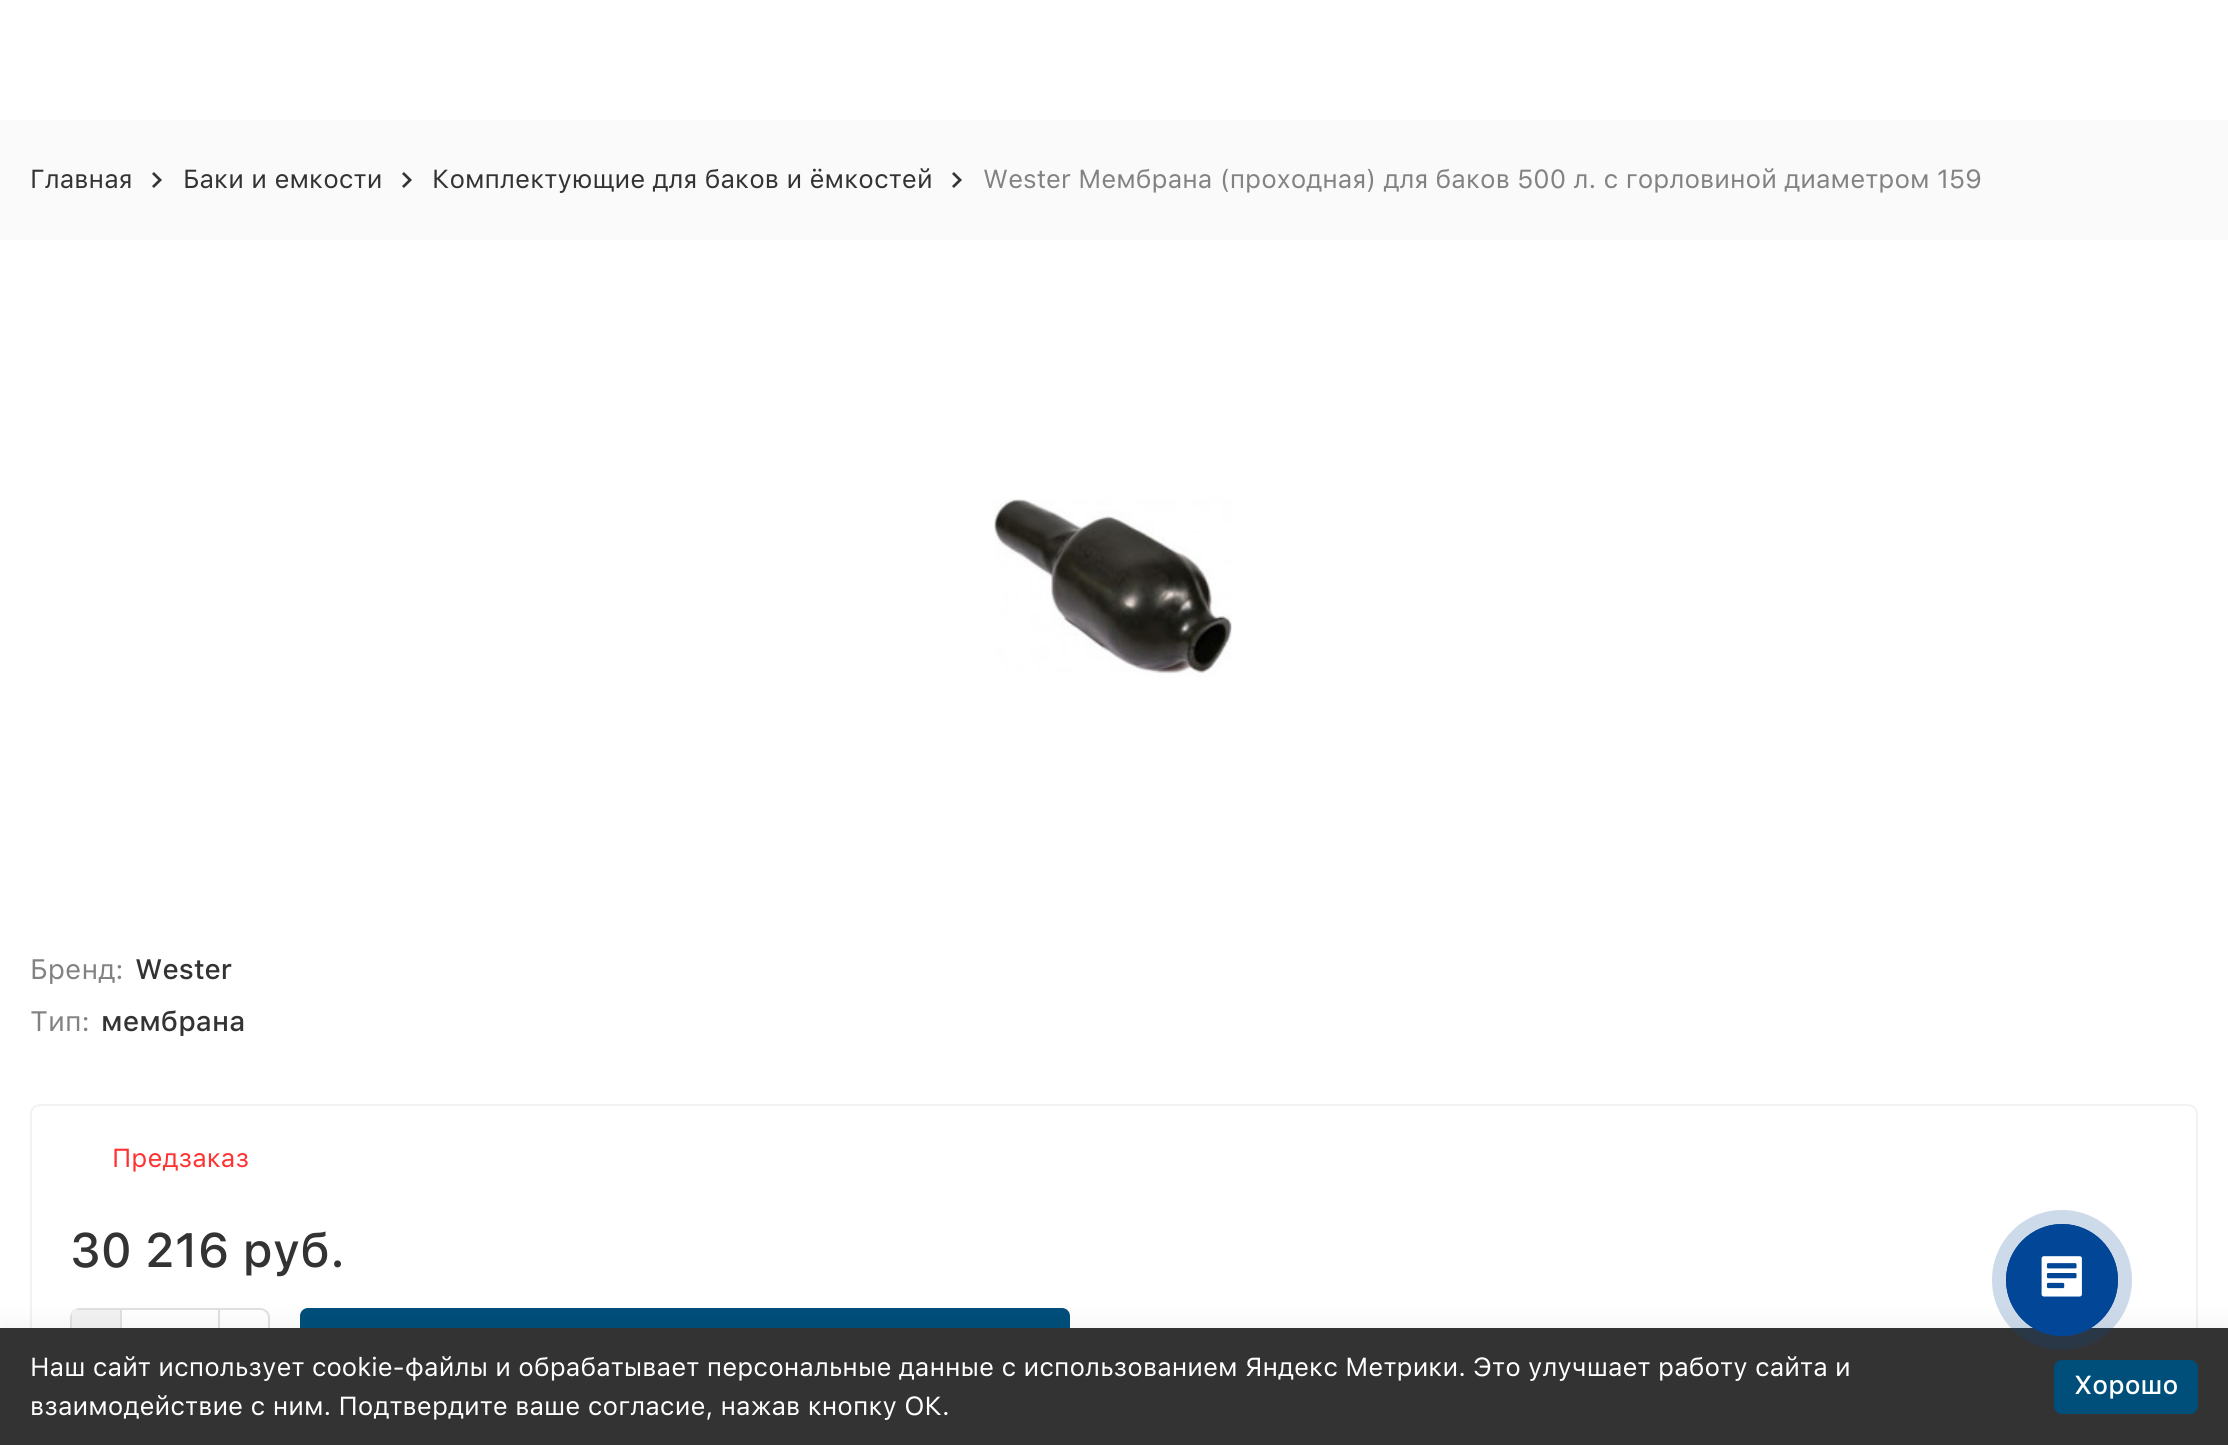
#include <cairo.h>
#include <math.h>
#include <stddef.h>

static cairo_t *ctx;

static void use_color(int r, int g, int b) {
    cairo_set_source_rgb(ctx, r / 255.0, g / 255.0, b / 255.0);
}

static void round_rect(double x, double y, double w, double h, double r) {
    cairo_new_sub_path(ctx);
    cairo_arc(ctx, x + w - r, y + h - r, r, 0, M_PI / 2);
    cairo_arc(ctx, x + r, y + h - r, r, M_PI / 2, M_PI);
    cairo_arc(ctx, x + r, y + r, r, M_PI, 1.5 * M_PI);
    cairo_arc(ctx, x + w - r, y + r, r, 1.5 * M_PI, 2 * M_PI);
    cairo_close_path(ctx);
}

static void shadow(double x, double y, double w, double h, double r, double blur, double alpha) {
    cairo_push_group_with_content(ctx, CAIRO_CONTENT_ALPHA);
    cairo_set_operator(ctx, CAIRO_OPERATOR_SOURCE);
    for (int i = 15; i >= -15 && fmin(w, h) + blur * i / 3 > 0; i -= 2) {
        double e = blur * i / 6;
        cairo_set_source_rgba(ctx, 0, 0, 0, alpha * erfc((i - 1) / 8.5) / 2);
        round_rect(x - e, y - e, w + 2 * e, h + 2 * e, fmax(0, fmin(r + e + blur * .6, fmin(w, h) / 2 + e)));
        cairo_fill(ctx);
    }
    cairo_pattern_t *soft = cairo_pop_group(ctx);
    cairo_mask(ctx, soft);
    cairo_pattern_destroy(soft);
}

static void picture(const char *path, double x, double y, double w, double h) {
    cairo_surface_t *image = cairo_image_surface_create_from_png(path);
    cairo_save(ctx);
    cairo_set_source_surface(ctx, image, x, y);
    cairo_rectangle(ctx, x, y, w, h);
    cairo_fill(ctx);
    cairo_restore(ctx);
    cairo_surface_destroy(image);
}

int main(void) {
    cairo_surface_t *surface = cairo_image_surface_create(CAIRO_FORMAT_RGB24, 2228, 1445);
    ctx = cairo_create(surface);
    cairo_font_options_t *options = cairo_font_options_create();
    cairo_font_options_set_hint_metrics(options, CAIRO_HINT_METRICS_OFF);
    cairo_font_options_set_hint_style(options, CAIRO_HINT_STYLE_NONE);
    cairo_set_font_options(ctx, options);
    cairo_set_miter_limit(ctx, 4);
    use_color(255, 255, 255);
    cairo_paint(ctx);
    use_color(250, 250, 250);
    cairo_rectangle(ctx, 0, 120, 2228, 120);
    cairo_fill(ctx);
    cairo_select_font_face(ctx, "SF Pro Text", CAIRO_FONT_SLANT_NORMAL, CAIRO_FONT_WEIGHT_NORMAL);
    cairo_set_font_size(ctx, 26);
    use_color(51, 51, 51);
    cairo_move_to(ctx, 30, 188);
    cairo_show_text(ctx, "Главная");
    picture("img1.png", 152, 172, 10, 16);
    cairo_move_to(ctx, 183, 188);
    cairo_show_text(ctx, "Баки и емкости");
    picture("img1.png", 402, 172, 10, 16);
    cairo_move_to(ctx, 432, 188);
    cairo_show_text(ctx, "Комплектующие для баков и ёмкостей");
    picture("img1.png", 952, 172, 10, 16);
    use_color(130, 130, 130);
    cairo_move_to(ctx, 983, 188);
    cairo_show_text(ctx, "Wester Мембрана (проходная) для баков 500 л. с горловиной диаметром 159");
    picture("img2.png", 994, 499, 238, 178);
    cairo_set_font_size(ctx, 28);
    cairo_move_to(ctx, 30, 979);
    cairo_show_text(ctx, "Бренд:");
    cairo_select_font_face(ctx, "SF Pro Text Medium", CAIRO_FONT_SLANT_NORMAL, CAIRO_FONT_WEIGHT_NORMAL);
    use_color(51, 51, 51);
    cairo_move_to(ctx, 135, 979);
    cairo_show_text(ctx, "Wester");
    cairo_select_font_face(ctx, "SF Pro Text", CAIRO_FONT_SLANT_NORMAL, CAIRO_FONT_WEIGHT_NORMAL);
    use_color(130, 130, 130);
    cairo_move_to(ctx, 30, 1031);
    cairo_show_text(ctx, "Тип:");
    cairo_select_font_face(ctx, "SF Pro Text Medium", CAIRO_FONT_SLANT_NORMAL, CAIRO_FONT_WEIGHT_NORMAL);
    use_color(51, 51, 51);
    cairo_move_to(ctx, 101, 1031);
    cairo_show_text(ctx, "мембрана");
    round_rect(31, 1105, 2166, 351, 9);
    use_color(242, 242, 242);
    cairo_stroke(ctx);
    cairo_select_font_face(ctx, "SF Pro Text", CAIRO_FONT_SLANT_NORMAL, CAIRO_FONT_WEIGHT_NORMAL);
    cairo_set_font_size(ctx, 26);
    use_color(255, 49, 49);
    cairo_move_to(ctx, 112, 1167);
    cairo_show_text(ctx, "Предзаказ");
    cairo_select_font_face(ctx, "SF Pro Text Medium", CAIRO_FONT_SLANT_NORMAL, CAIRO_FONT_WEIGHT_NORMAL);
    cairo_set_font_size(ctx, 48);
    use_color(51, 51, 51);
    cairo_move_to(ctx, 70, 1267);
    cairo_show_text(ctx, "30 216 руб.");
    round_rect(71, 1309, 198, 78, 9);
    use_color(224, 224, 224);
    cairo_stroke(ctx);
    use_color(242, 242, 242);
    cairo_rectangle(ctx, 72, 1310, 48, 18);
    cairo_fill(ctx);
    cairo_rectangle(ctx, 121, 1309, 98, 78);
    use_color(224, 224, 224);
    cairo_stroke(ctx);
    use_color(0, 79, 122);
    round_rect(300, 1308, 770, 80, 8);
    cairo_fill(ctx);
    use_color(0, 0, 0);
    shadow(0, 1328, 2228, 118, 0, 15, 0.07);
    use_color(51, 51, 51);
    cairo_rectangle(ctx, 0, 1328, 2228, 117);
    cairo_fill(ctx);
    cairo_set_source_rgba(ctx, 0.008, 0.275, 0.592, 0.2);
    cairo_arc(ctx, 2062, 1280, 70, 0, 2 * M_PI);
    cairo_fill(ctx);
    cairo_arc(ctx, 2062, 1280, 55, 0, 2 * M_PI);
    use_color(2, 70, 151);
    cairo_stroke(ctx);
    cairo_arc(ctx, 2062, 1280, 56, 0, 2 * M_PI);
    cairo_fill(ctx);
    picture("img3.png", 2041, 1256, 41, 41);
    cairo_select_font_face(ctx, "SF Pro Text", CAIRO_FONT_SLANT_NORMAL, CAIRO_FONT_WEIGHT_NORMAL);
    cairo_set_font_size(ctx, 26);
    use_color(255, 255, 255);
    cairo_move_to(ctx, 30, 1376);
    cairo_show_text(ctx, "Наш сайт использует cookie-файлы и обрабатывает персональные данные с использованием Яндекс Метрики. Это улучшает работу сайта и");
    cairo_move_to(ctx, 30, 1415);
    cairo_show_text(ctx, "взаимодействие с ним. Подтвердите ваше согласие, нажав кнопку ОК.");
    use_color(0, 79, 122);
    round_rect(2054, 1360, 144, 54, 8);
    cairo_fill(ctx);
    cairo_select_font_face(ctx, "SF Pro Text Medium", CAIRO_FONT_SLANT_NORMAL, CAIRO_FONT_WEIGHT_NORMAL);
    use_color(255, 255, 255);
    cairo_move_to(ctx, 2074, 1394);
    cairo_show_text(ctx, "Хорошо");
    cairo_surface_write_to_png(surface, "result.png");
    cairo_font_options_destroy(options);
    cairo_destroy(ctx);
    cairo_surface_destroy(surface);
    return 0;
}
